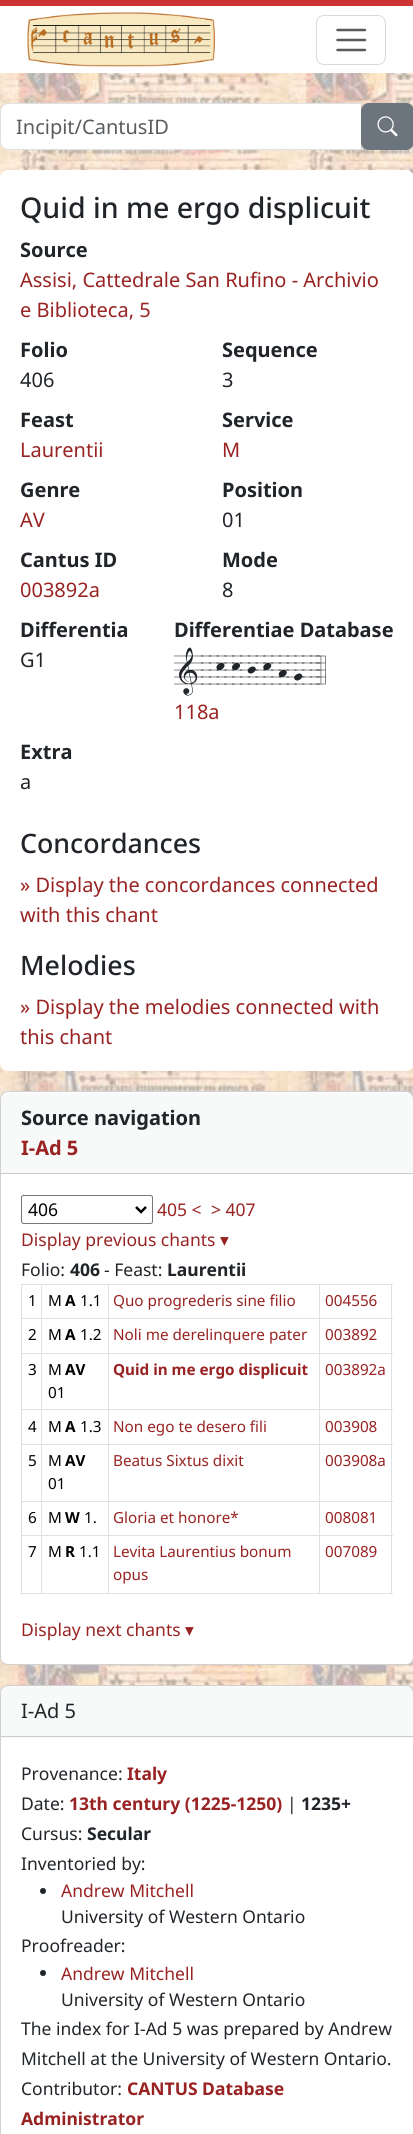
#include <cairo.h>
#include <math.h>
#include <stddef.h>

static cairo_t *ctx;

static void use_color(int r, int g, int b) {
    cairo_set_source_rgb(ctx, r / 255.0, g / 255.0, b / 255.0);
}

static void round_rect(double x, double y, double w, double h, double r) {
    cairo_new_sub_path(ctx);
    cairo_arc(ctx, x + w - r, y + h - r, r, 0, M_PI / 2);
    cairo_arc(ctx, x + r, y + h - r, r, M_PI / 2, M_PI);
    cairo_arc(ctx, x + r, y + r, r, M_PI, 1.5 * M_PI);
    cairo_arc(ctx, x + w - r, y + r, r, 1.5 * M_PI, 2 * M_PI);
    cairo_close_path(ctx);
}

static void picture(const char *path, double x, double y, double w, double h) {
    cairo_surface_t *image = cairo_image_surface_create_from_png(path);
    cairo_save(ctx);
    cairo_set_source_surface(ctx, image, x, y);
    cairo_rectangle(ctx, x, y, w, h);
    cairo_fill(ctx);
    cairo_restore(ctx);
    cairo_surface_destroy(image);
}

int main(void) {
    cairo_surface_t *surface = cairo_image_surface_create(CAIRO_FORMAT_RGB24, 413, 2134);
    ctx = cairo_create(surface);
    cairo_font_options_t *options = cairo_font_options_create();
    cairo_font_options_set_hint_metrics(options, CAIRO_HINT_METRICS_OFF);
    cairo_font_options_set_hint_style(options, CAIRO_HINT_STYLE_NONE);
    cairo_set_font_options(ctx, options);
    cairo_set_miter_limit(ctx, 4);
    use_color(255, 255, 255);
    cairo_paint(ctx);
    picture("img1.png", 0, 73, 413, 1620);
    use_color(204, 51, 51);
    cairo_rectangle(ctx, 0, 0, 413, 6);
    cairo_fill(ctx);
    picture("img2.png", 27, 12, 188, 55);
    round_rect(316.5, 15.5, 69, 49, 7.5);
    use_color(217, 217, 217);
    cairo_set_line_width(ctx, 1);
    cairo_stroke(ctx);
    cairo_new_path(ctx);
    cairo_move_to(ctx, 337.5, 30);
    cairo_line_to(ctx, 365, 30);
    cairo_move_to(ctx, 337.5, 40);
    cairo_line_to(ctx, 365, 40);
    cairo_move_to(ctx, 337.5, 50);
    cairo_line_to(ctx, 365, 50);
    use_color(89, 92, 95);
    cairo_set_line_width(ctx, 2.5);
    cairo_set_line_cap(ctx, CAIRO_LINE_CAP_ROUND);
    cairo_stroke(ctx);
    use_color(255, 255, 255);
    cairo_new_path(ctx);
    cairo_move_to(ctx, 7, 104);
    cairo_line_to(ctx, 361, 104);
    cairo_line_to(ctx, 361, 149);
    cairo_line_to(ctx, 7, 149);
    cairo_curve_to(ctx, 3.5, 149, 1, 146.5, 1, 143);
    cairo_line_to(ctx, 1, 110);
    cairo_curve_to(ctx, 1, 106.5, 3.5, 104, 7, 104);
    cairo_close_path(ctx);
    cairo_fill(ctx);
    cairo_new_path(ctx);
    cairo_move_to(ctx, 8, 103.5);
    cairo_line_to(ctx, 362.5, 103.5);
    cairo_line_to(ctx, 362.5, 149.5);
    cairo_line_to(ctx, 8, 149.5);
    cairo_curve_to(ctx, 4, 149.5, 0.5, 146, 0.5, 142);
    cairo_line_to(ctx, 0.5, 111);
    cairo_curve_to(ctx, 0.5, 107, 4, 103.5, 8, 103.5);
    cairo_close_path(ctx);
    use_color(222, 226, 230);
    cairo_set_line_width(ctx, 1);
    cairo_set_line_cap(ctx, CAIRO_LINE_CAP_BUTT);
    cairo_stroke(ctx);
    cairo_select_font_face(ctx, "Noto Sans", CAIRO_FONT_SLANT_NORMAL, CAIRO_FONT_WEIGHT_NORMAL);
    cairo_set_font_size(ctx, 20);
    use_color(89, 92, 95);
    cairo_move_to(ctx, 16, 134);
    cairo_show_text(ctx, "Incipit/CantusID");
    use_color(108, 117, 125);
    round_rect(361.5, 103.5, 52, 46, 7.5);
    cairo_fill_preserve(ctx);
    cairo_stroke(ctx);
    picture("img3.png", 377, 116, 21, 21);
    use_color(255, 255, 255);
    round_rect(0, 170, 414, 901, 8);
    cairo_fill(ctx);
    cairo_select_font_face(ctx, "Noto Sans Medium", CAIRO_FONT_SLANT_NORMAL, CAIRO_FONT_WEIGHT_NORMAL);
    cairo_set_font_size(ctx, 28.5);
    use_color(33, 37, 41);
    cairo_move_to(ctx, 20, 218);
    cairo_show_text(ctx, "Quid in me ergo displicuit");
    cairo_select_font_face(ctx, "Noto Sans", CAIRO_FONT_SLANT_NORMAL, CAIRO_FONT_WEIGHT_BOLD);
    cairo_set_font_size(ctx, 20);
    cairo_move_to(ctx, 20, 257);
    cairo_show_text(ctx, "Source");
    cairo_select_font_face(ctx, "Noto Sans", CAIRO_FONT_SLANT_NORMAL, CAIRO_FONT_WEIGHT_NORMAL);
    use_color(153, 34, 34);
    cairo_move_to(ctx, 20, 287);
    cairo_show_text(ctx, "Assisi, Cattedrale San Rufino - Archivio");
    cairo_move_to(ctx, 20, 317);
    cairo_show_text(ctx, "e Biblioteca, 5");
    cairo_select_font_face(ctx, "Noto Sans", CAIRO_FONT_SLANT_NORMAL, CAIRO_FONT_WEIGHT_BOLD);
    use_color(33, 37, 41);
    cairo_move_to(ctx, 20, 357);
    cairo_show_text(ctx, "Folio");
    cairo_select_font_face(ctx, "Noto Sans", CAIRO_FONT_SLANT_NORMAL, CAIRO_FONT_WEIGHT_NORMAL);
    cairo_move_to(ctx, 20, 387);
    cairo_show_text(ctx, "406");
    cairo_select_font_face(ctx, "Noto Sans", CAIRO_FONT_SLANT_NORMAL, CAIRO_FONT_WEIGHT_BOLD);
    cairo_move_to(ctx, 222, 357);
    cairo_show_text(ctx, "Sequence");
    cairo_select_font_face(ctx, "Noto Sans", CAIRO_FONT_SLANT_NORMAL, CAIRO_FONT_WEIGHT_NORMAL);
    cairo_move_to(ctx, 222, 387);
    cairo_show_text(ctx, "3");
    cairo_select_font_face(ctx, "Noto Sans", CAIRO_FONT_SLANT_NORMAL, CAIRO_FONT_WEIGHT_BOLD);
    cairo_move_to(ctx, 20, 427);
    cairo_show_text(ctx, "Feast");
    cairo_select_font_face(ctx, "Noto Sans", CAIRO_FONT_SLANT_NORMAL, CAIRO_FONT_WEIGHT_NORMAL);
    use_color(153, 34, 34);
    cairo_move_to(ctx, 20, 457);
    cairo_show_text(ctx, "Laurentii");
    cairo_select_font_face(ctx, "Noto Sans", CAIRO_FONT_SLANT_NORMAL, CAIRO_FONT_WEIGHT_BOLD);
    use_color(33, 37, 41);
    cairo_move_to(ctx, 222, 427);
    cairo_show_text(ctx, "Service");
    cairo_select_font_face(ctx, "Noto Sans", CAIRO_FONT_SLANT_NORMAL, CAIRO_FONT_WEIGHT_NORMAL);
    use_color(153, 34, 34);
    cairo_move_to(ctx, 222, 457);
    cairo_show_text(ctx, "M");
    cairo_select_font_face(ctx, "Noto Sans", CAIRO_FONT_SLANT_NORMAL, CAIRO_FONT_WEIGHT_BOLD);
    use_color(33, 37, 41);
    cairo_move_to(ctx, 20, 497);
    cairo_show_text(ctx, "Genre");
    cairo_select_font_face(ctx, "Noto Sans", CAIRO_FONT_SLANT_NORMAL, CAIRO_FONT_WEIGHT_NORMAL);
    use_color(153, 34, 34);
    cairo_move_to(ctx, 20, 527);
    cairo_show_text(ctx, "AV");
    cairo_select_font_face(ctx, "Noto Sans", CAIRO_FONT_SLANT_NORMAL, CAIRO_FONT_WEIGHT_BOLD);
    use_color(33, 37, 41);
    cairo_move_to(ctx, 222, 497);
    cairo_show_text(ctx, "Position");
    cairo_select_font_face(ctx, "Noto Sans", CAIRO_FONT_SLANT_NORMAL, CAIRO_FONT_WEIGHT_NORMAL);
    cairo_move_to(ctx, 222, 527);
    cairo_show_text(ctx, "01");
    cairo_select_font_face(ctx, "Noto Sans", CAIRO_FONT_SLANT_NORMAL, CAIRO_FONT_WEIGHT_BOLD);
    cairo_move_to(ctx, 20, 567);
    cairo_show_text(ctx, "Cantus ID");
    cairo_select_font_face(ctx, "Noto Sans", CAIRO_FONT_SLANT_NORMAL, CAIRO_FONT_WEIGHT_NORMAL);
    use_color(153, 34, 34);
    cairo_move_to(ctx, 20, 597);
    cairo_show_text(ctx, "003892a");
    cairo_select_font_face(ctx, "Noto Sans", CAIRO_FONT_SLANT_NORMAL, CAIRO_FONT_WEIGHT_BOLD);
    use_color(33, 37, 41);
    cairo_move_to(ctx, 222, 567);
    cairo_show_text(ctx, "Mode");
    cairo_select_font_face(ctx, "Noto Sans", CAIRO_FONT_SLANT_NORMAL, CAIRO_FONT_WEIGHT_NORMAL);
    cairo_move_to(ctx, 222, 597);
    cairo_show_text(ctx, "8");
    cairo_select_font_face(ctx, "Noto Sans", CAIRO_FONT_SLANT_NORMAL, CAIRO_FONT_WEIGHT_BOLD);
    cairo_move_to(ctx, 20, 637);
    cairo_show_text(ctx, "Differentia");
    cairo_select_font_face(ctx, "Noto Sans", CAIRO_FONT_SLANT_NORMAL, CAIRO_FONT_WEIGHT_NORMAL);
    cairo_move_to(ctx, 20, 667);
    cairo_show_text(ctx, "G1");
    cairo_select_font_face(ctx, "Noto Sans", CAIRO_FONT_SLANT_NORMAL, CAIRO_FONT_WEIGHT_BOLD);
    cairo_move_to(ctx, 174, 637);
    cairo_show_text(ctx, "Differentiae Database");
    cairo_select_font_face(ctx, "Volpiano", CAIRO_FONT_SLANT_NORMAL, CAIRO_FONT_WEIGHT_NORMAL);
    cairo_set_font_size(ctx, 35);
    cairo_move_to(ctx, 174, 684);
    cairo_show_text(ctx, "1--k-k-j-k-h-g--4");
    cairo_select_font_face(ctx, "Noto Sans", CAIRO_FONT_SLANT_NORMAL, CAIRO_FONT_WEIGHT_NORMAL);
    cairo_set_font_size(ctx, 20);
    use_color(153, 34, 34);
    cairo_move_to(ctx, 174, 719);
    cairo_show_text(ctx, "118a");
    cairo_select_font_face(ctx, "Noto Sans", CAIRO_FONT_SLANT_NORMAL, CAIRO_FONT_WEIGHT_BOLD);
    use_color(33, 37, 41);
    cairo_move_to(ctx, 20, 759);
    cairo_show_text(ctx, "Extra");
    cairo_select_font_face(ctx, "Noto Sans", CAIRO_FONT_SLANT_NORMAL, CAIRO_FONT_WEIGHT_NORMAL);
    cairo_move_to(ctx, 20, 789);
    cairo_show_text(ctx, "a");
    cairo_select_font_face(ctx, "Noto Sans Medium", CAIRO_FONT_SLANT_NORMAL, CAIRO_FONT_WEIGHT_NORMAL);
    cairo_set_font_size(ctx, 26.75);
    cairo_move_to(ctx, 20, 853);
    cairo_show_text(ctx, "Concordances");
    cairo_select_font_face(ctx, "Noto Sans", CAIRO_FONT_SLANT_NORMAL, CAIRO_FONT_WEIGHT_NORMAL);
    cairo_set_font_size(ctx, 20);
    use_color(153, 34, 34);
    cairo_move_to(ctx, 20, 892);
    cairo_show_text(ctx, "» Display the concordances connected");
    cairo_move_to(ctx, 20, 922);
    cairo_show_text(ctx, "with this chant");
    cairo_select_font_face(ctx, "Noto Sans Medium", CAIRO_FONT_SLANT_NORMAL, CAIRO_FONT_WEIGHT_NORMAL);
    cairo_set_font_size(ctx, 26.75);
    use_color(33, 37, 41);
    cairo_move_to(ctx, 20, 975);
    cairo_show_text(ctx, "Melodies");
    cairo_select_font_face(ctx, "Noto Sans", CAIRO_FONT_SLANT_NORMAL, CAIRO_FONT_WEIGHT_NORMAL);
    cairo_set_font_size(ctx, 20);
    use_color(153, 34, 34);
    cairo_move_to(ctx, 20, 1014);
    cairo_show_text(ctx, "» Display the melodies connected with");
    cairo_move_to(ctx, 20, 1044);
    cairo_show_text(ctx, "this chant");
    use_color(255, 255, 255);
    round_rect(0, 1091, 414, 574, 8);
    cairo_fill(ctx);
    round_rect(0.5, 1091.5, 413, 573, 7.5);
    cairo_set_source_rgba(ctx, 0, 0, 0, 0.18);
    cairo_stroke(ctx);
    cairo_set_source_rgba(ctx, 0.129, 0.145, 0.161, 0.03);
    cairo_rectangle(ctx, 1, 1093, 412, 80);
    cairo_fill(ctx);
    use_color(205, 205, 205);
    cairo_rectangle(ctx, 1, 1173, 412, 1);
    cairo_fill(ctx);
    cairo_select_font_face(ctx, "Noto Sans", CAIRO_FONT_SLANT_NORMAL, CAIRO_FONT_WEIGHT_BOLD);
    use_color(33, 37, 41);
    cairo_move_to(ctx, 21, 1125);
    cairo_show_text(ctx, "Source navigation");
    use_color(153, 34, 34);
    cairo_move_to(ctx, 21, 1155);
    cairo_show_text(ctx, "I-Ad 5");
    round_rect(21.5, 1195.5, 131, 28, 2);
    use_color(118, 118, 118);
    cairo_stroke(ctx);
    cairo_new_path(ctx);
    cairo_move_to(ctx, 136, 1207);
    cairo_line_to(ctx, 141, 1212);
    cairo_line_to(ctx, 146, 1207);
    use_color(0, 0, 0);
    cairo_set_line_width(ctx, 2.5);
    cairo_stroke(ctx);
    cairo_select_font_face(ctx, "Noto Sans", CAIRO_FONT_SLANT_NORMAL, CAIRO_FONT_WEIGHT_NORMAL);
    cairo_set_font_size(ctx, 17.5);
    cairo_move_to(ctx, 28, 1216);
    cairo_show_text(ctx, "406");
    use_color(153, 34, 34);
    cairo_move_to(ctx, 157, 1216);
    cairo_show_text(ctx, "405 <");
    cairo_move_to(ctx, 211, 1216);
    cairo_show_text(ctx, "> 407");
    cairo_move_to(ctx, 21, 1246);
    cairo_show_text(ctx, "Display previous chants");
    cairo_select_font_face(ctx, "DejaVu Sans", CAIRO_FONT_SLANT_NORMAL, CAIRO_FONT_WEIGHT_NORMAL);
    cairo_move_to(ctx, 220, 1246);
    cairo_show_text(ctx, "▾");
    cairo_select_font_face(ctx, "Noto Sans", CAIRO_FONT_SLANT_NORMAL, CAIRO_FONT_WEIGHT_NORMAL);
    use_color(33, 37, 41);
    cairo_move_to(ctx, 21, 1276);
    cairo_show_text(ctx, "Folio:");
    cairo_select_font_face(ctx, "Noto Sans", CAIRO_FONT_SLANT_NORMAL, CAIRO_FONT_WEIGHT_BOLD);
    cairo_move_to(ctx, 70, 1276);
    cairo_show_text(ctx, "406");
    cairo_select_font_face(ctx, "Noto Sans", CAIRO_FONT_SLANT_NORMAL, CAIRO_FONT_WEIGHT_NORMAL);
    cairo_move_to(ctx, 104, 1276);
    cairo_show_text(ctx, "- Feast:");
    cairo_select_font_face(ctx, "Noto Sans", CAIRO_FONT_SLANT_NORMAL, CAIRO_FONT_WEIGHT_BOLD);
    cairo_move_to(ctx, 167, 1276);
    cairo_show_text(ctx, "Laurentii");
    use_color(222, 226, 230);
    cairo_rectangle(ctx, 21, 1284, 372, 1);
    cairo_fill(ctx);
    cairo_select_font_face(ctx, "Noto Sans", CAIRO_FONT_SLANT_NORMAL, CAIRO_FONT_WEIGHT_NORMAL);
    cairo_set_font_size(ctx, 15.25);
    use_color(0, 0, 0);
    cairo_move_to(ctx, 28, 1306);
    cairo_show_text(ctx, "1");
    cairo_move_to(ctx, 48, 1306);
    cairo_show_text(ctx, "M");
    cairo_select_font_face(ctx, "Noto Sans", CAIRO_FONT_SLANT_NORMAL, CAIRO_FONT_WEIGHT_BOLD);
    cairo_move_to(ctx, 65, 1306);
    cairo_show_text(ctx, "A");
    cairo_select_font_face(ctx, "Noto Sans", CAIRO_FONT_SLANT_NORMAL, CAIRO_FONT_WEIGHT_NORMAL);
    cairo_move_to(ctx, 80, 1306);
    cairo_show_text(ctx, "1.1");
    use_color(153, 34, 34);
    cairo_move_to(ctx, 113, 1306);
    cairo_show_text(ctx, "Quo progrederis sine filio");
    cairo_move_to(ctx, 325, 1306);
    cairo_show_text(ctx, "004556");
    use_color(222, 226, 230);
    cairo_rectangle(ctx, 21, 1318, 372, 1);
    cairo_fill(ctx);
    use_color(0, 0, 0);
    cairo_move_to(ctx, 28, 1340);
    cairo_show_text(ctx, "2");
    cairo_move_to(ctx, 48, 1340);
    cairo_show_text(ctx, "M");
    cairo_select_font_face(ctx, "Noto Sans", CAIRO_FONT_SLANT_NORMAL, CAIRO_FONT_WEIGHT_BOLD);
    cairo_move_to(ctx, 65, 1340);
    cairo_show_text(ctx, "A");
    cairo_select_font_face(ctx, "Noto Sans", CAIRO_FONT_SLANT_NORMAL, CAIRO_FONT_WEIGHT_NORMAL);
    cairo_move_to(ctx, 80, 1340);
    cairo_show_text(ctx, "1.2");
    use_color(153, 34, 34);
    cairo_move_to(ctx, 113, 1340);
    cairo_show_text(ctx, "Noli me derelinquere pater");
    cairo_move_to(ctx, 325, 1340);
    cairo_show_text(ctx, "003892");
    use_color(222, 226, 230);
    cairo_rectangle(ctx, 21, 1353, 372, 1);
    cairo_fill(ctx);
    use_color(0, 0, 0);
    cairo_move_to(ctx, 28, 1375);
    cairo_show_text(ctx, "3");
    cairo_move_to(ctx, 48, 1375);
    cairo_show_text(ctx, "M");
    cairo_select_font_face(ctx, "Noto Sans", CAIRO_FONT_SLANT_NORMAL, CAIRO_FONT_WEIGHT_BOLD);
    cairo_move_to(ctx, 65, 1375);
    cairo_show_text(ctx, "AV");
    cairo_select_font_face(ctx, "Noto Sans", CAIRO_FONT_SLANT_NORMAL, CAIRO_FONT_WEIGHT_NORMAL);
    cairo_move_to(ctx, 48, 1398);
    cairo_show_text(ctx, "01");
    cairo_select_font_face(ctx, "Noto Sans", CAIRO_FONT_SLANT_NORMAL, CAIRO_FONT_WEIGHT_BOLD);
    use_color(153, 34, 34);
    cairo_move_to(ctx, 113, 1375);
    cairo_show_text(ctx, "Quid in me ergo displicuit");
    cairo_select_font_face(ctx, "Noto Sans", CAIRO_FONT_SLANT_NORMAL, CAIRO_FONT_WEIGHT_NORMAL);
    cairo_move_to(ctx, 325, 1375);
    cairo_show_text(ctx, "003892a");
    use_color(222, 226, 230);
    cairo_rectangle(ctx, 21, 1409, 372, 1);
    cairo_fill(ctx);
    use_color(0, 0, 0);
    cairo_move_to(ctx, 28, 1432);
    cairo_show_text(ctx, "4");
    cairo_move_to(ctx, 48, 1432);
    cairo_show_text(ctx, "M");
    cairo_select_font_face(ctx, "Noto Sans", CAIRO_FONT_SLANT_NORMAL, CAIRO_FONT_WEIGHT_BOLD);
    cairo_move_to(ctx, 65, 1432);
    cairo_show_text(ctx, "A");
    cairo_select_font_face(ctx, "Noto Sans", CAIRO_FONT_SLANT_NORMAL, CAIRO_FONT_WEIGHT_NORMAL);
    cairo_move_to(ctx, 80, 1432);
    cairo_show_text(ctx, "1.3");
    use_color(153, 34, 34);
    cairo_move_to(ctx, 113, 1432);
    cairo_show_text(ctx, "Non ego te desero fili");
    cairo_move_to(ctx, 325, 1432);
    cairo_show_text(ctx, "003908");
    use_color(222, 226, 230);
    cairo_rectangle(ctx, 21, 1444, 372, 1);
    cairo_fill(ctx);
    use_color(0, 0, 0);
    cairo_move_to(ctx, 28, 1466);
    cairo_show_text(ctx, "5");
    cairo_move_to(ctx, 48, 1466);
    cairo_show_text(ctx, "M");
    cairo_select_font_face(ctx, "Noto Sans", CAIRO_FONT_SLANT_NORMAL, CAIRO_FONT_WEIGHT_BOLD);
    cairo_move_to(ctx, 65, 1466);
    cairo_show_text(ctx, "AV");
    cairo_select_font_face(ctx, "Noto Sans", CAIRO_FONT_SLANT_NORMAL, CAIRO_FONT_WEIGHT_NORMAL);
    cairo_move_to(ctx, 48, 1489);
    cairo_show_text(ctx, "01");
    use_color(153, 34, 34);
    cairo_move_to(ctx, 113, 1466);
    cairo_show_text(ctx, "Beatus Sixtus dixit");
    cairo_move_to(ctx, 325, 1466);
    cairo_show_text(ctx, "003908a");
    use_color(222, 226, 230);
    cairo_rectangle(ctx, 21, 1501, 372, 1);
    cairo_fill(ctx);
    use_color(0, 0, 0);
    cairo_move_to(ctx, 28, 1523);
    cairo_show_text(ctx, "6");
    cairo_move_to(ctx, 48, 1523);
    cairo_show_text(ctx, "M");
    cairo_select_font_face(ctx, "Noto Sans", CAIRO_FONT_SLANT_NORMAL, CAIRO_FONT_WEIGHT_BOLD);
    cairo_move_to(ctx, 65, 1523);
    cairo_show_text(ctx, "W");
    cairo_select_font_face(ctx, "Noto Sans", CAIRO_FONT_SLANT_NORMAL, CAIRO_FONT_WEIGHT_NORMAL);
    cairo_move_to(ctx, 84, 1523);
    cairo_show_text(ctx, "1.");
    use_color(153, 34, 34);
    cairo_move_to(ctx, 113, 1523);
    cairo_show_text(ctx, "Gloria et honore*");
    cairo_move_to(ctx, 325, 1523);
    cairo_show_text(ctx, "008081");
    use_color(222, 226, 230);
    cairo_rectangle(ctx, 21, 1535, 372, 1);
    cairo_fill(ctx);
    cairo_rectangle(ctx, 21, 1593, 372, 1);
    cairo_fill(ctx);
    cairo_rectangle(ctx, 21, 1284, 1, 310);
    cairo_fill(ctx);
    use_color(0, 0, 0);
    cairo_move_to(ctx, 28, 1557);
    cairo_show_text(ctx, "7");
    use_color(222, 226, 230);
    cairo_rectangle(ctx, 41, 1284, 1, 310);
    cairo_fill(ctx);
    use_color(0, 0, 0);
    cairo_move_to(ctx, 48, 1557);
    cairo_show_text(ctx, "M");
    cairo_select_font_face(ctx, "Noto Sans", CAIRO_FONT_SLANT_NORMAL, CAIRO_FONT_WEIGHT_BOLD);
    cairo_move_to(ctx, 65, 1557);
    cairo_show_text(ctx, "R");
    cairo_select_font_face(ctx, "Noto Sans", CAIRO_FONT_SLANT_NORMAL, CAIRO_FONT_WEIGHT_NORMAL);
    cairo_move_to(ctx, 79, 1557);
    cairo_show_text(ctx, "1.1");
    use_color(222, 226, 230);
    cairo_rectangle(ctx, 108, 1284, 1, 310);
    cairo_fill(ctx);
    use_color(153, 34, 34);
    cairo_move_to(ctx, 113, 1557);
    cairo_show_text(ctx, "Levita Laurentius bonum");
    cairo_move_to(ctx, 113, 1580);
    cairo_show_text(ctx, "opus");
    use_color(222, 226, 230);
    cairo_rectangle(ctx, 391, 1284, 1, 310);
    cairo_fill(ctx);
    cairo_rectangle(ctx, 319, 1284, 1, 310);
    cairo_fill(ctx);
    use_color(153, 34, 34);
    cairo_move_to(ctx, 325, 1557);
    cairo_show_text(ctx, "007089");
    cairo_set_font_size(ctx, 17.5);
    cairo_move_to(ctx, 21, 1636);
    cairo_show_text(ctx, "Display next chants");
    cairo_select_font_face(ctx, "DejaVu Sans", CAIRO_FONT_SLANT_NORMAL, CAIRO_FONT_WEIGHT_NORMAL);
    cairo_move_to(ctx, 185, 1636);
    cairo_show_text(ctx, "▾");
    use_color(255, 255, 255);
    round_rect(0, 1685, 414, 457, 8);
    cairo_fill(ctx);
    round_rect(0.5, 1685.5, 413, 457, 7.5);
    cairo_set_source_rgba(ctx, 0, 0, 0, 0.18);
    cairo_set_line_width(ctx, 1);
    cairo_stroke(ctx);
    cairo_set_source_rgba(ctx, 0.129, 0.145, 0.161, 0.03);
    cairo_rectangle(ctx, 1, 1686, 412, 52);
    cairo_fill(ctx);
    use_color(205, 205, 205);
    cairo_rectangle(ctx, 1, 1736, 412, 1);
    cairo_fill(ctx);
    cairo_select_font_face(ctx, "Noto Sans", CAIRO_FONT_SLANT_NORMAL, CAIRO_FONT_WEIGHT_NORMAL);
    cairo_set_font_size(ctx, 20);
    use_color(33, 37, 41);
    cairo_move_to(ctx, 21, 1718);
    cairo_show_text(ctx, "I-Ad 5");
    cairo_set_font_size(ctx, 17.5);
    cairo_move_to(ctx, 21, 1780);
    cairo_show_text(ctx, "Provenance:");
    cairo_select_font_face(ctx, "Noto Sans", CAIRO_FONT_SLANT_NORMAL, CAIRO_FONT_WEIGHT_BOLD);
    use_color(153, 34, 34);
    cairo_move_to(ctx, 127, 1780);
    cairo_show_text(ctx, "Italy");
    cairo_select_font_face(ctx, "Noto Sans", CAIRO_FONT_SLANT_NORMAL, CAIRO_FONT_WEIGHT_NORMAL);
    use_color(33, 37, 41);
    cairo_move_to(ctx, 21, 1810);
    cairo_show_text(ctx, "Date:");
    cairo_select_font_face(ctx, "Noto Sans", CAIRO_FONT_SLANT_NORMAL, CAIRO_FONT_WEIGHT_BOLD);
    use_color(153, 34, 34);
    cairo_move_to(ctx, 69, 1810);
    cairo_show_text(ctx, "13th century (1225-1250)");
    cairo_select_font_face(ctx, "Noto Sans", CAIRO_FONT_SLANT_NORMAL, CAIRO_FONT_WEIGHT_NORMAL);
    use_color(33, 37, 41);
    cairo_move_to(ctx, 287, 1810);
    cairo_show_text(ctx, "|");
    cairo_select_font_face(ctx, "Noto Sans", CAIRO_FONT_SLANT_NORMAL, CAIRO_FONT_WEIGHT_BOLD);
    cairo_move_to(ctx, 301, 1810);
    cairo_show_text(ctx, "1235+");
    cairo_select_font_face(ctx, "Noto Sans", CAIRO_FONT_SLANT_NORMAL, CAIRO_FONT_WEIGHT_NORMAL);
    cairo_move_to(ctx, 21, 1840);
    cairo_show_text(ctx, "Cursus:");
    cairo_select_font_face(ctx, "Noto Sans", CAIRO_FONT_SLANT_NORMAL, CAIRO_FONT_WEIGHT_BOLD);
    cairo_move_to(ctx, 87, 1840);
    cairo_show_text(ctx, "Secular");
    cairo_select_font_face(ctx, "Noto Sans", CAIRO_FONT_SLANT_NORMAL, CAIRO_FONT_WEIGHT_NORMAL);
    cairo_move_to(ctx, 21, 1870);
    cairo_show_text(ctx, "Inventoried by:");
    cairo_new_path(ctx);
    cairo_arc(ctx, 43, 1891, 3, 0, 2 * M_PI);
    cairo_fill(ctx);
    use_color(153, 34, 34);
    cairo_move_to(ctx, 61, 1897);
    cairo_show_text(ctx, "Andrew Mitchell");
    use_color(33, 37, 41);
    cairo_move_to(ctx, 61, 1923);
    cairo_show_text(ctx, "University of Western Ontario");
    cairo_move_to(ctx, 21, 1952);
    cairo_show_text(ctx, "Proofreader:");
    cairo_new_path(ctx);
    cairo_arc(ctx, 43, 1973, 3, 0, 2 * M_PI);
    cairo_fill(ctx);
    use_color(153, 34, 34);
    cairo_move_to(ctx, 61, 1980);
    cairo_show_text(ctx, "Andrew Mitchell");
    use_color(33, 37, 41);
    cairo_move_to(ctx, 61, 2006);
    cairo_show_text(ctx, "University of Western Ontario");
    cairo_move_to(ctx, 21, 2035);
    cairo_show_text(ctx, "The index for I-Ad 5 was prepared by Andrew");
    cairo_move_to(ctx, 21, 2065);
    cairo_show_text(ctx, "Mitchell at the University of Western Ontario.");
    cairo_move_to(ctx, 21, 2095);
    cairo_show_text(ctx, "Contributor:");
    cairo_select_font_face(ctx, "Noto Sans", CAIRO_FONT_SLANT_NORMAL, CAIRO_FONT_WEIGHT_BOLD);
    use_color(153, 34, 34);
    cairo_move_to(ctx, 127, 2095);
    cairo_show_text(ctx, "CANTUS Database");
    cairo_move_to(ctx, 21, 2125);
    cairo_show_text(ctx, "Administrator");
    cairo_surface_write_to_png(surface, "result.png");
    cairo_font_options_destroy(options);
    cairo_destroy(ctx);
    cairo_surface_destroy(surface);
    return 0;
}
